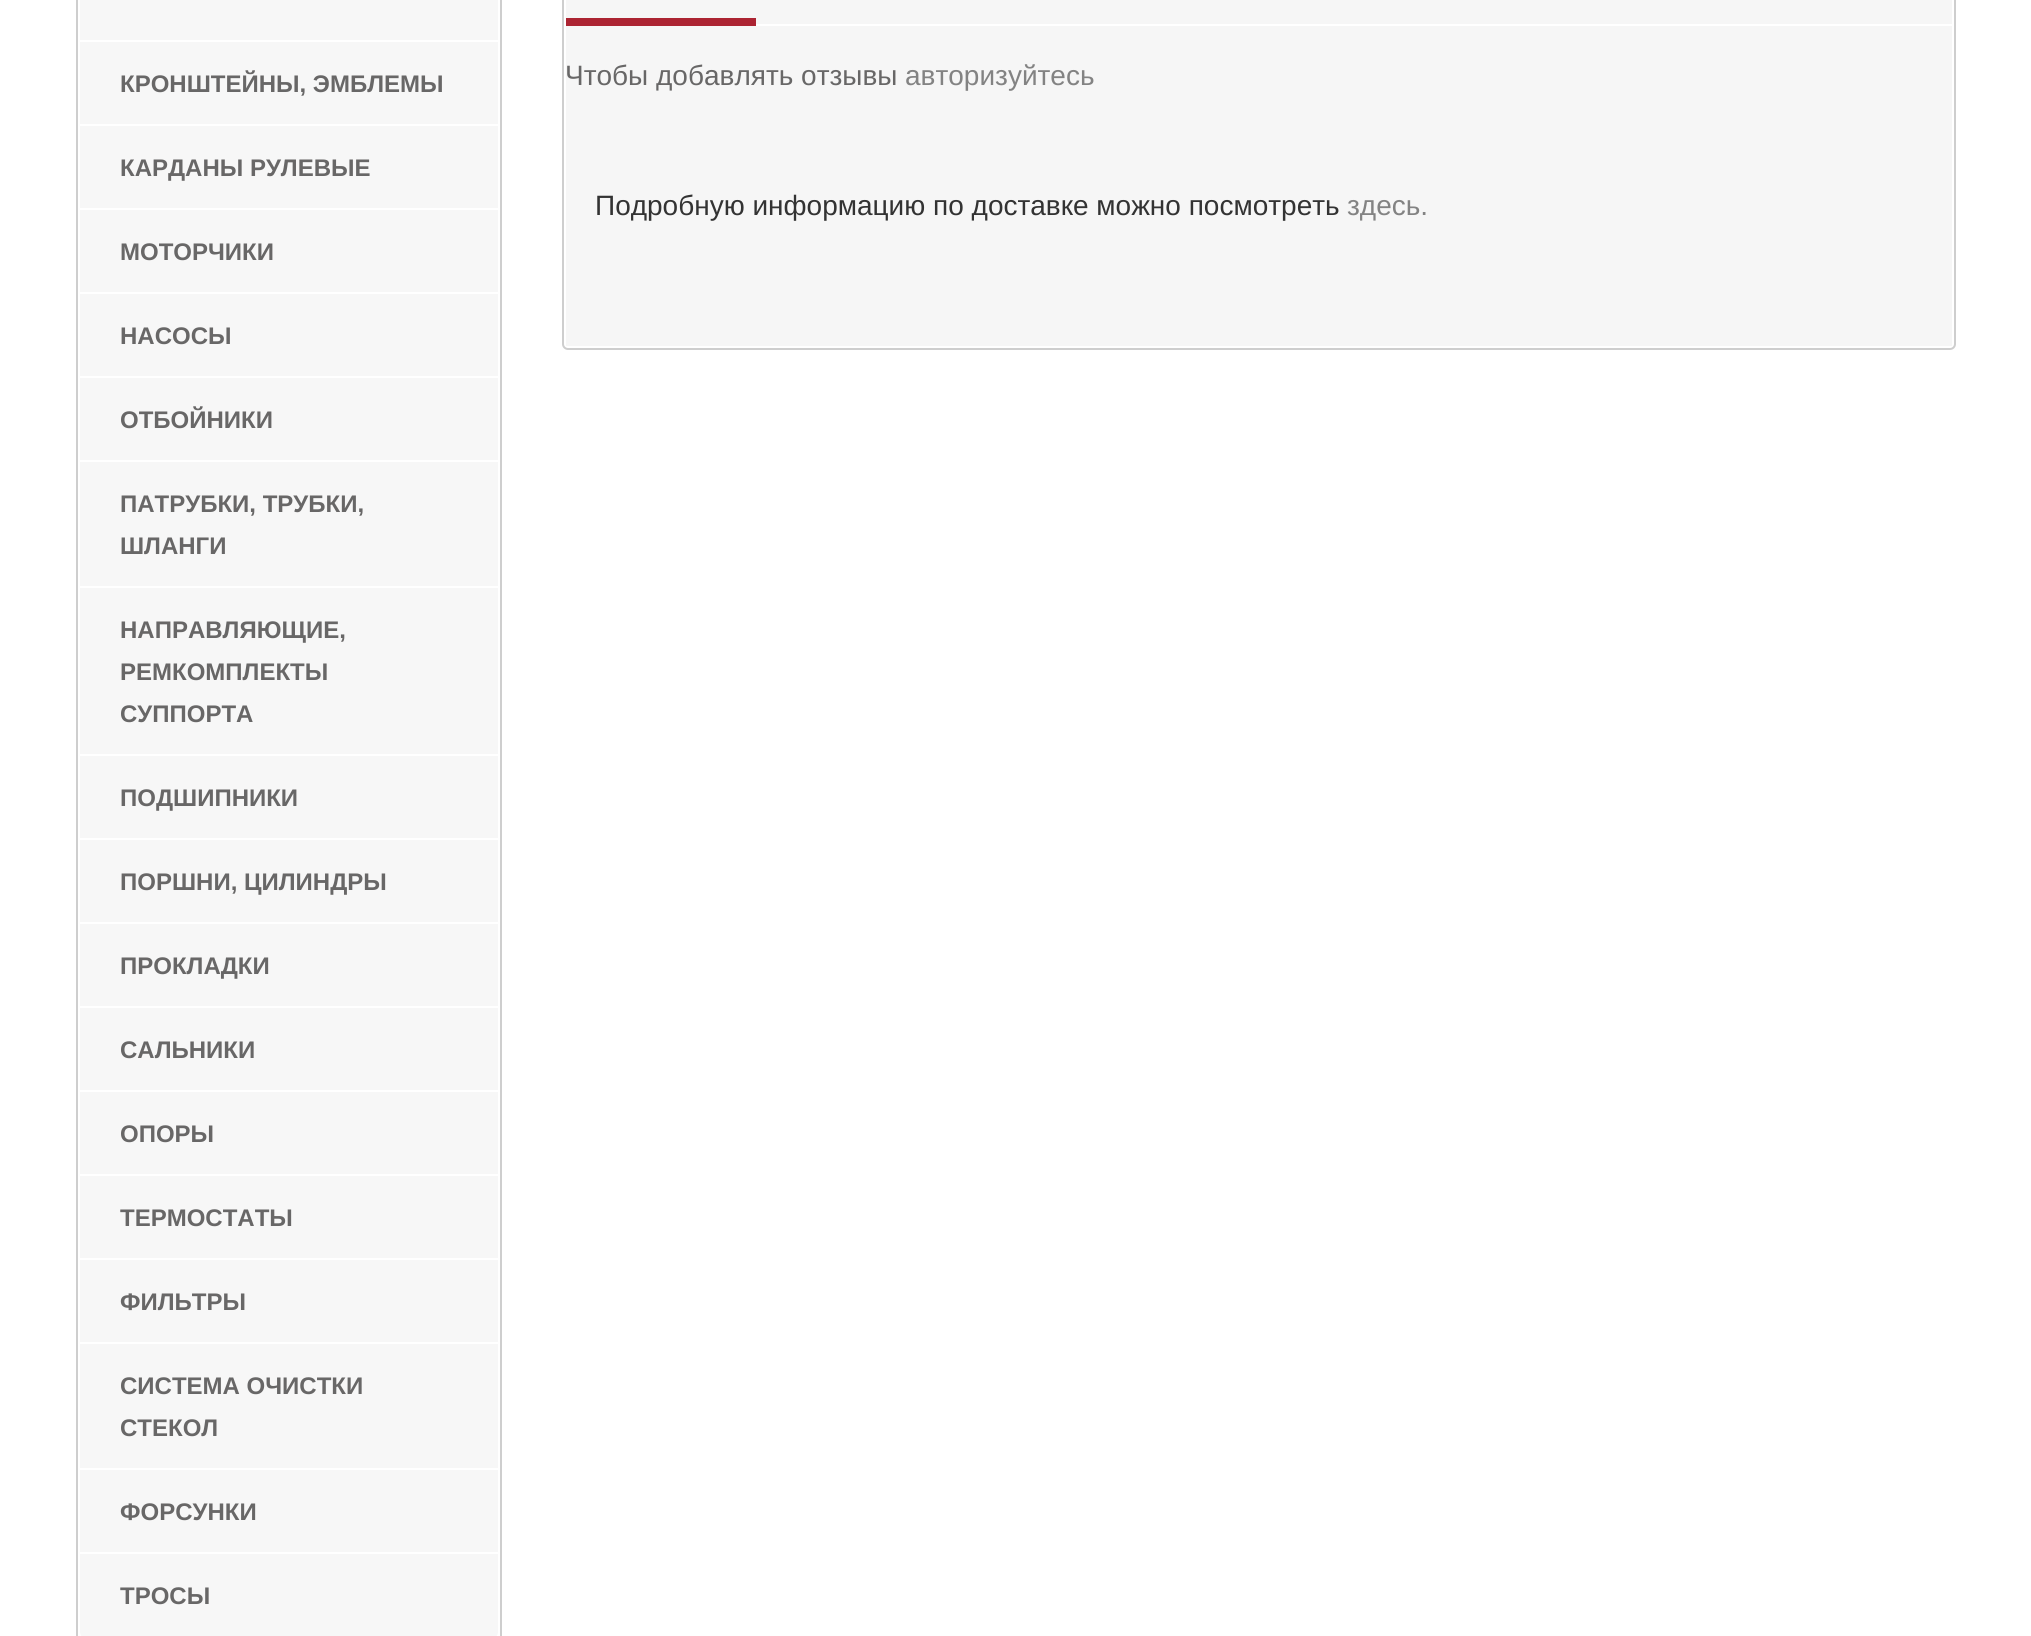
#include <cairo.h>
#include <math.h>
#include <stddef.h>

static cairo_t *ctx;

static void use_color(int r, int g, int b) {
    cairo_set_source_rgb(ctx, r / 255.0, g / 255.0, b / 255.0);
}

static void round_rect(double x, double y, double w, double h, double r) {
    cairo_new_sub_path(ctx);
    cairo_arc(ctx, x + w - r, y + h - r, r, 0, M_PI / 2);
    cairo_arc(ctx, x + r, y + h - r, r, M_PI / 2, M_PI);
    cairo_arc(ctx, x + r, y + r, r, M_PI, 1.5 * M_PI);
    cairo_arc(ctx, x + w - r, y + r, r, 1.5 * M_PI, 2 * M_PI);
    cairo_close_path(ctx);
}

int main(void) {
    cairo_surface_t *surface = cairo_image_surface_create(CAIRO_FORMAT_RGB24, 2031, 1636);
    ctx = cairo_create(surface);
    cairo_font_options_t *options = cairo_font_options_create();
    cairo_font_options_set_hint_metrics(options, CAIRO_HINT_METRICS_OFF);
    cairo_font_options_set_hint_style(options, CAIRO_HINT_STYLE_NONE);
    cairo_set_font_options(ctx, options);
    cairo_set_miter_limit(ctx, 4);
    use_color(255, 255, 255);
    cairo_paint(ctx);
    cairo_rectangle(ctx, 77, -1, 424, 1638);
    use_color(206, 206, 206);
    cairo_stroke(ctx);
    use_color(247, 247, 247);
    cairo_rectangle(ctx, 80, 0, 418, 40);
    cairo_fill(ctx);
    cairo_rectangle(ctx, 80, 42, 418, 82);
    cairo_fill(ctx);
    cairo_select_font_face(ctx, "Liberation Sans", CAIRO_FONT_SLANT_NORMAL, CAIRO_FONT_WEIGHT_BOLD);
    cairo_set_font_size(ctx, 24);
    use_color(104, 103, 103);
    cairo_move_to(ctx, 120, 92);
    cairo_show_text(ctx, "КРОНШТЕЙНЫ, ЭМБЛЕМЫ");
    use_color(247, 247, 247);
    cairo_rectangle(ctx, 80, 126, 418, 82);
    cairo_fill(ctx);
    use_color(104, 103, 103);
    cairo_move_to(ctx, 120, 176);
    cairo_show_text(ctx, "КАРДАНЫ РУЛЕВЫЕ");
    use_color(247, 247, 247);
    cairo_rectangle(ctx, 80, 210, 418, 82);
    cairo_fill(ctx);
    use_color(104, 103, 103);
    cairo_move_to(ctx, 120, 260);
    cairo_show_text(ctx, "МОТОРЧИКИ");
    use_color(247, 247, 247);
    cairo_rectangle(ctx, 80, 294, 418, 82);
    cairo_fill(ctx);
    use_color(104, 103, 103);
    cairo_move_to(ctx, 120, 344);
    cairo_show_text(ctx, "НАСОСЫ");
    use_color(247, 247, 247);
    cairo_rectangle(ctx, 80, 378, 418, 82);
    cairo_fill(ctx);
    use_color(104, 103, 103);
    cairo_move_to(ctx, 120, 428);
    cairo_show_text(ctx, "ОТБОЙНИКИ");
    use_color(247, 247, 247);
    cairo_rectangle(ctx, 80, 462, 418, 124);
    cairo_fill(ctx);
    use_color(104, 103, 103);
    cairo_move_to(ctx, 120, 512);
    cairo_show_text(ctx, "ПАТРУБКИ, ТРУБКИ,");
    cairo_move_to(ctx, 120, 554);
    cairo_show_text(ctx, "ШЛАНГИ");
    use_color(247, 247, 247);
    cairo_rectangle(ctx, 80, 588, 418, 166);
    cairo_fill(ctx);
    use_color(104, 103, 103);
    cairo_move_to(ctx, 120, 638);
    cairo_show_text(ctx, "НАПРАВЛЯЮЩИЕ,");
    cairo_move_to(ctx, 120, 680);
    cairo_show_text(ctx, "РЕМКОМПЛЕКТЫ");
    cairo_move_to(ctx, 120, 722);
    cairo_show_text(ctx, "СУППОРТА");
    use_color(247, 247, 247);
    cairo_rectangle(ctx, 80, 756, 418, 82);
    cairo_fill(ctx);
    use_color(104, 103, 103);
    cairo_move_to(ctx, 120, 806);
    cairo_show_text(ctx, "ПОДШИПНИКИ");
    use_color(247, 247, 247);
    cairo_rectangle(ctx, 80, 840, 418, 82);
    cairo_fill(ctx);
    use_color(104, 103, 103);
    cairo_move_to(ctx, 120, 890);
    cairo_show_text(ctx, "ПОРШНИ, ЦИЛИНДРЫ");
    use_color(247, 247, 247);
    cairo_rectangle(ctx, 80, 924, 418, 82);
    cairo_fill(ctx);
    use_color(104, 103, 103);
    cairo_move_to(ctx, 120, 974);
    cairo_show_text(ctx, "ПРОКЛАДКИ");
    use_color(247, 247, 247);
    cairo_rectangle(ctx, 80, 1008, 418, 82);
    cairo_fill(ctx);
    use_color(104, 103, 103);
    cairo_move_to(ctx, 120, 1058);
    cairo_show_text(ctx, "САЛЬНИКИ");
    use_color(247, 247, 247);
    cairo_rectangle(ctx, 80, 1092, 418, 82);
    cairo_fill(ctx);
    use_color(104, 103, 103);
    cairo_move_to(ctx, 120, 1142);
    cairo_show_text(ctx, "ОПОРЫ");
    use_color(247, 247, 247);
    cairo_rectangle(ctx, 80, 1176, 418, 82);
    cairo_fill(ctx);
    use_color(104, 103, 103);
    cairo_move_to(ctx, 120, 1226);
    cairo_show_text(ctx, "ТЕРМОСТАТЫ");
    use_color(247, 247, 247);
    cairo_rectangle(ctx, 80, 1260, 418, 82);
    cairo_fill(ctx);
    use_color(104, 103, 103);
    cairo_move_to(ctx, 120, 1310);
    cairo_show_text(ctx, "ФИЛЬТРЫ");
    use_color(247, 247, 247);
    cairo_rectangle(ctx, 80, 1344, 418, 124);
    cairo_fill(ctx);
    use_color(104, 103, 103);
    cairo_move_to(ctx, 120, 1394);
    cairo_show_text(ctx, "СИСТЕМА ОЧИСТКИ");
    cairo_move_to(ctx, 120, 1436);
    cairo_show_text(ctx, "СТЕКОЛ");
    use_color(247, 247, 247);
    cairo_rectangle(ctx, 80, 1470, 418, 82);
    cairo_fill(ctx);
    use_color(104, 103, 103);
    cairo_move_to(ctx, 120, 1520);
    cairo_show_text(ctx, "ФОРСУНКИ");
    use_color(247, 247, 247);
    cairo_new_path(ctx);
    cairo_move_to(ctx, 80, 1554);
    cairo_line_to(ctx, 498, 1554);
    cairo_line_to(ctx, 498, 1632);
    cairo_curve_to(ctx, 498, 1635.5, 495.5, 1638, 492, 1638);
    cairo_line_to(ctx, 86, 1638);
    cairo_curve_to(ctx, 82.5, 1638, 80, 1635.5, 80, 1632);
    cairo_close_path(ctx);
    cairo_fill(ctx);
    use_color(104, 103, 103);
    cairo_move_to(ctx, 120, 1604);
    cairo_show_text(ctx, "ТРОСЫ");
    round_rect(563, -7, 1392, 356, 5);
    use_color(206, 206, 206);
    cairo_stroke(ctx);
    use_color(246, 246, 246);
    cairo_rectangle(ctx, 566, 0, 1386, 346);
    cairo_fill(ctx);
    use_color(255, 255, 255);
    cairo_rectangle(ctx, 756, 24, 1196, 2);
    cairo_fill(ctx);
    use_color(172, 36, 50);
    cairo_rectangle(ctx, 566, 18, 190, 8);
    cairo_fill(ctx);
    cairo_select_font_face(ctx, "Liberation Sans", CAIRO_FONT_SLANT_NORMAL, CAIRO_FONT_WEIGHT_NORMAL);
    cairo_set_font_size(ctx, 28);
    use_color(104, 103, 103);
    cairo_move_to(ctx, 565, 85);
    cairo_show_text(ctx, "Чтобы добавлять отзывы");
    use_color(131, 131, 131);
    cairo_move_to(ctx, 905, 85);
    cairo_show_text(ctx, "авторизуйтесь");
    use_color(51, 51, 51);
    cairo_move_to(ctx, 595, 215);
    cairo_show_text(ctx, "Подробную информацию по доставке можно посмотреть");
    use_color(131, 131, 131);
    cairo_move_to(ctx, 1347, 215);
    cairo_show_text(ctx, "здесь.");
    cairo_surface_write_to_png(surface, "result.png");
    cairo_font_options_destroy(options);
    cairo_destroy(ctx);
    cairo_surface_destroy(surface);
    return 0;
}
